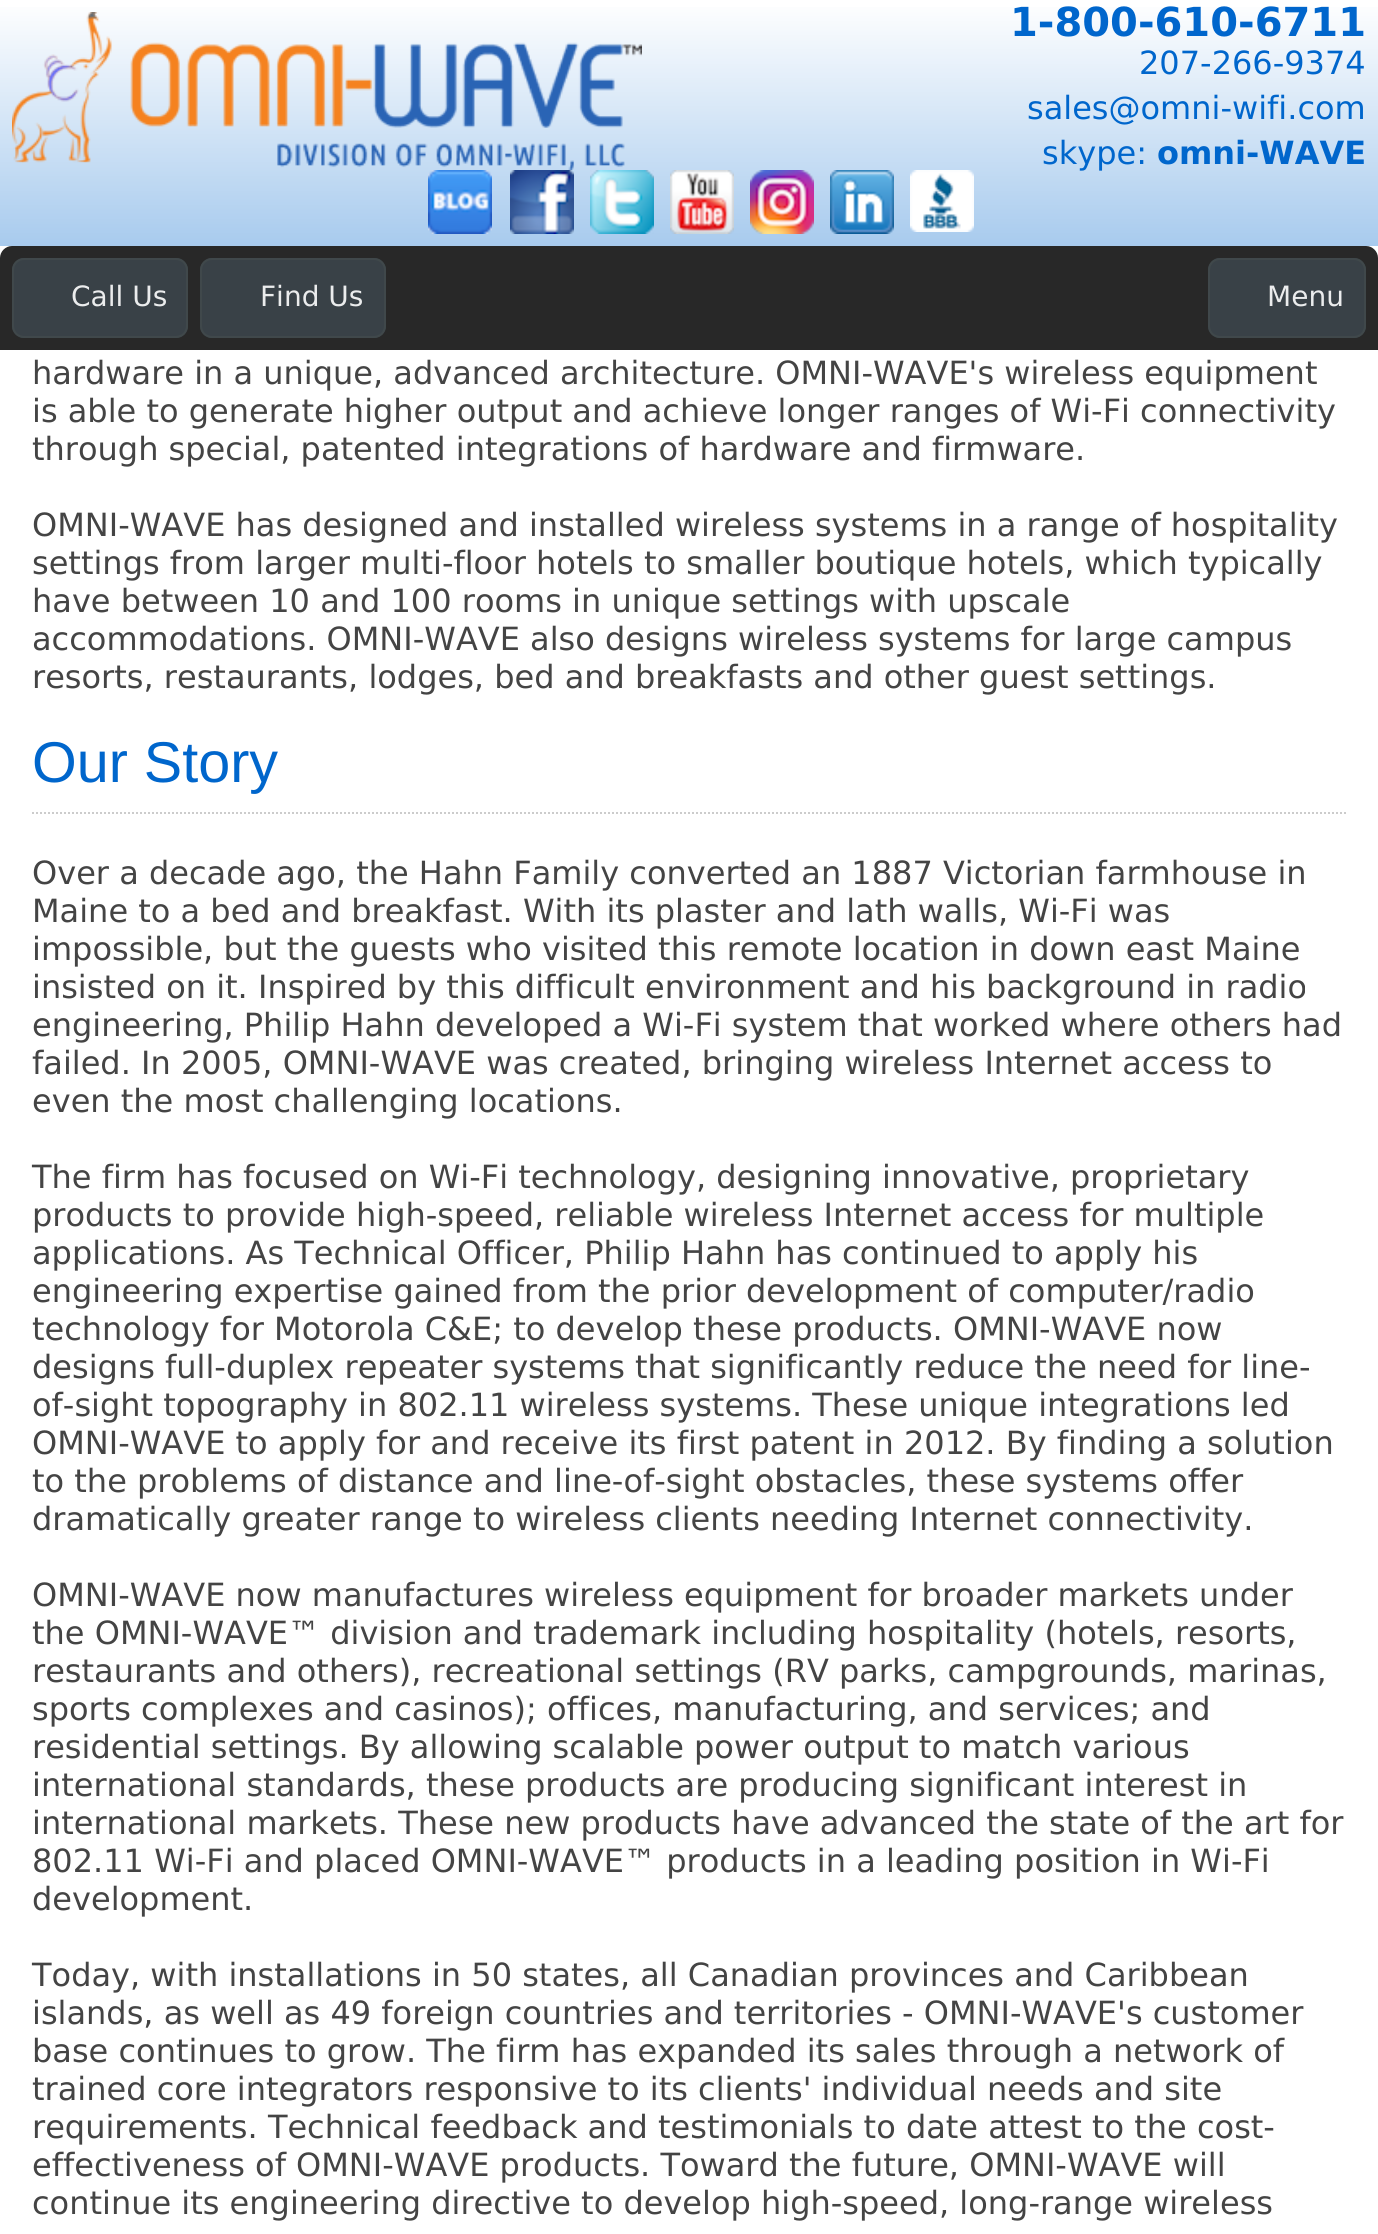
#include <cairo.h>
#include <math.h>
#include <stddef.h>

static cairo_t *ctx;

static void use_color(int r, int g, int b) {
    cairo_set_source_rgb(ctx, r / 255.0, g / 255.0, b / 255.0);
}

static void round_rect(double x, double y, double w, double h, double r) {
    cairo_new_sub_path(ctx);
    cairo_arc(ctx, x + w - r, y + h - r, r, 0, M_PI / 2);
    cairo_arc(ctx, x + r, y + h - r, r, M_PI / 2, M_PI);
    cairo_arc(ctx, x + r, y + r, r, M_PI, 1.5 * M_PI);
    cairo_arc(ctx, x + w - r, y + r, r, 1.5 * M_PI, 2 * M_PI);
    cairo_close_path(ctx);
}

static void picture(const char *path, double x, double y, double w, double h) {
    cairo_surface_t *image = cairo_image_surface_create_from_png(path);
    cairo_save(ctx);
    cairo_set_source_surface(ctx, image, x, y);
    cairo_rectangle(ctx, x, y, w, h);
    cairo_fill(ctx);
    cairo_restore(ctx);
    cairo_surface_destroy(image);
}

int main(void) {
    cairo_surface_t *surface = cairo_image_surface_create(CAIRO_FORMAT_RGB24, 1378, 2234);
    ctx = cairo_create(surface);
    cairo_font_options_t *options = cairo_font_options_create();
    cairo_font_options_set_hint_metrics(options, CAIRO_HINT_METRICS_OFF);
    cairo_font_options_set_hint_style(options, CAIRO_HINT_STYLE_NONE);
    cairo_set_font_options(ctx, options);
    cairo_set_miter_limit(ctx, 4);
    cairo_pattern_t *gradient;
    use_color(255, 255, 255);
    cairo_paint(ctx);
    gradient = cairo_pattern_create_linear(689, 0, 689, 720);
    cairo_pattern_add_color_stop_rgba(gradient, 0, 1, 1, 1, 1);
    cairo_pattern_add_color_stop_rgba(gradient, 1, 0, 0.4, 0.8, 1);
    cairo_set_source(ctx, gradient);
    cairo_pattern_destroy(gradient);
    cairo_rectangle(ctx, 0, 7, 1378, 239);
    cairo_fill(ctx);
    picture("img1.png", 12, 12, 630, 158);
    cairo_select_font_face(ctx, "DejaVu Sans", CAIRO_FONT_SLANT_NORMAL, CAIRO_FONT_WEIGHT_BOLD);
    cairo_set_font_size(ctx, 40);
    use_color(0, 102, 204);
    cairo_move_to(ctx, 1010, 36);
    cairo_show_text(ctx, "1-800-610-6711");
    cairo_select_font_face(ctx, "DejaVu Sans", CAIRO_FONT_SLANT_NORMAL, CAIRO_FONT_WEIGHT_NORMAL);
    cairo_set_font_size(ctx, 32);
    cairo_move_to(ctx, 1139, 74);
    cairo_show_text(ctx, "207-266-9374");
    cairo_move_to(ctx, 1027, 119);
    cairo_show_text(ctx, "sales@omni-wifi.com");
    cairo_move_to(ctx, 1042, 164);
    cairo_show_text(ctx, "skype:");
    cairo_select_font_face(ctx, "DejaVu Sans", CAIRO_FONT_SLANT_NORMAL, CAIRO_FONT_WEIGHT_BOLD);
    cairo_move_to(ctx, 1157, 164);
    cairo_show_text(ctx, "omni-WAVE");
    picture("img2.png", 428, 170, 64, 64);
    picture("img3.png", 510, 170, 64, 64);
    picture("img4.png", 590, 170, 64, 64);
    picture("img5.png", 670, 170, 64, 64);
    picture("img6.png", 750, 170, 64, 64);
    picture("img7.png", 830, 170, 64, 64);
    picture("img8.png", 910, 170, 64, 62);
    cairo_set_source_rgba(ctx, 0.067, 0.067, 0.067, 0.9);
    cairo_new_path(ctx);
    cairo_move_to(ctx, 12, 246);
    cairo_line_to(ctx, 1366, 246);
    cairo_curve_to(ctx, 1372.5, 246, 1378, 251.5, 1378, 258);
    cairo_line_to(ctx, 1378, 350);
    cairo_line_to(ctx, 0, 350);
    cairo_line_to(ctx, 0, 258);
    cairo_curve_to(ctx, 0, 251.5, 5.5, 246, 12, 246);
    cairo_close_path(ctx);
    cairo_fill(ctx);
    cairo_set_source_rgba(ctx, 0.231, 0.267, 0.294, 0.9);
    round_rect(12, 258, 176, 80, 12);
    cairo_fill(ctx);
    round_rect(13, 259, 174, 78, 11);
    cairo_set_source_rgba(ctx, 0.255, 0.29, 0.298, 0.9);
    cairo_stroke(ctx);
    cairo_select_font_face(ctx, "DejaVu Sans", CAIRO_FONT_SLANT_NORMAL, CAIRO_FONT_WEIGHT_NORMAL);
    cairo_set_font_size(ctx, 28);
    use_color(235, 236, 237);
    cairo_move_to(ctx, 71, 306);
    cairo_show_text(ctx, "Call Us");
    cairo_set_source_rgba(ctx, 0.231, 0.267, 0.294, 0.9);
    round_rect(200, 258, 186, 80, 12);
    cairo_fill(ctx);
    round_rect(201, 259, 184, 78, 11);
    cairo_set_source_rgba(ctx, 0.255, 0.29, 0.298, 0.9);
    cairo_stroke(ctx);
    use_color(235, 236, 237);
    cairo_move_to(ctx, 260, 306);
    cairo_show_text(ctx, "Find Us");
    cairo_set_source_rgba(ctx, 0.231, 0.267, 0.294, 0.9);
    round_rect(1208, 258, 158, 80, 12);
    cairo_fill(ctx);
    round_rect(1209, 259, 156, 78, 11);
    cairo_set_source_rgba(ctx, 0.255, 0.29, 0.298, 0.9);
    cairo_stroke(ctx);
    use_color(235, 236, 237);
    cairo_move_to(ctx, 1267, 306);
    cairo_show_text(ctx, "Menu");
    cairo_set_font_size(ctx, 32);
    use_color(68, 68, 68);
    cairo_move_to(ctx, 32, 384);
    cairo_show_text(ctx, "hardware in a unique, advanced architecture. OMNI-WAVE's wireless equipment");
    cairo_move_to(ctx, 32, 422);
    cairo_show_text(ctx, "is able to generate higher output and achieve longer ranges of Wi-Fi connectivity");
    cairo_move_to(ctx, 32, 460);
    cairo_show_text(ctx, "through special, patented integrations of hardware and firmware.");
    cairo_move_to(ctx, 32, 536);
    cairo_show_text(ctx, "OMNI-WAVE has designed and installed wireless systems in a range of hospitality");
    cairo_move_to(ctx, 32, 574);
    cairo_show_text(ctx, "settings from larger multi-floor hotels to smaller boutique hotels, which typically");
    cairo_move_to(ctx, 32, 612);
    cairo_show_text(ctx, "have between 10 and 100 rooms in unique settings with upscale");
    cairo_move_to(ctx, 32, 650);
    cairo_show_text(ctx, "accommodations. OMNI-WAVE also designs wireless systems for large campus");
    cairo_move_to(ctx, 32, 688);
    cairo_show_text(ctx, "resorts, restaurants, lodges, bed and breakfasts and other guest settings.");
    cairo_new_path(ctx);
    cairo_move_to(ctx, 32, 813);
    cairo_line_to(ctx, 1346, 813);
    use_color(204, 204, 204);
    cairo_set_dash(ctx, (double[]){2, 2}, 2, 0);
    cairo_stroke(ctx);
    cairo_select_font_face(ctx, "Liberation Sans", CAIRO_FONT_SLANT_NORMAL, CAIRO_FONT_WEIGHT_NORMAL);
    cairo_set_font_size(ctx, 57.5);
    use_color(0, 102, 204);
    cairo_move_to(ctx, 32, 782);
    cairo_show_text(ctx, "Our Story");
    cairo_select_font_face(ctx, "DejaVu Sans", CAIRO_FONT_SLANT_NORMAL, CAIRO_FONT_WEIGHT_NORMAL);
    cairo_set_font_size(ctx, 32);
    use_color(68, 68, 68);
    cairo_move_to(ctx, 32, 884);
    cairo_show_text(ctx, "Over a decade ago, the Hahn Family converted an 1887 Victorian farmhouse in");
    cairo_move_to(ctx, 32, 922);
    cairo_show_text(ctx, "Maine to a bed and breakfast. With its plaster and lath walls, Wi-Fi was");
    cairo_move_to(ctx, 32, 960);
    cairo_show_text(ctx, "impossible, but the guests who visited this remote location in down east Maine");
    cairo_move_to(ctx, 32, 998);
    cairo_show_text(ctx, "insisted on it. Inspired by this difficult environment and his background in radio");
    cairo_move_to(ctx, 32, 1036);
    cairo_show_text(ctx, "engineering, Philip Hahn developed a Wi-Fi system that worked where others had");
    cairo_move_to(ctx, 32, 1074);
    cairo_show_text(ctx, "failed. In 2005, OMNI-WAVE was created, bringing wireless Internet access to");
    cairo_move_to(ctx, 32, 1112);
    cairo_show_text(ctx, "even the most challenging locations.");
    cairo_move_to(ctx, 32, 1188);
    cairo_show_text(ctx, "The firm has focused on Wi-Fi technology, designing innovative, proprietary");
    cairo_move_to(ctx, 32, 1226);
    cairo_show_text(ctx, "products to provide high-speed, reliable wireless Internet access for multiple");
    cairo_move_to(ctx, 32, 1264);
    cairo_show_text(ctx, "applications. As Technical Officer, Philip Hahn has continued to apply his");
    cairo_move_to(ctx, 32, 1302);
    cairo_show_text(ctx, "engineering expertise gained from the prior development of computer/radio");
    cairo_move_to(ctx, 32, 1340);
    cairo_show_text(ctx, "technology for Motorola C&E; to develop these products. OMNI-WAVE now");
    cairo_move_to(ctx, 32, 1378);
    cairo_show_text(ctx, "designs full-duplex repeater systems that significantly reduce the need for line-");
    cairo_move_to(ctx, 32, 1416);
    cairo_show_text(ctx, "of-sight topography in 802.11 wireless systems. These unique integrations led");
    cairo_move_to(ctx, 32, 1454);
    cairo_show_text(ctx, "OMNI-WAVE to apply for and receive its first patent in 2012. By finding a solution");
    cairo_move_to(ctx, 32, 1492);
    cairo_show_text(ctx, "to the problems of distance and line-of-sight obstacles, these systems offer");
    cairo_move_to(ctx, 32, 1530);
    cairo_show_text(ctx, "dramatically greater range to wireless clients needing Internet connectivity.");
    cairo_move_to(ctx, 32, 1606);
    cairo_show_text(ctx, "OMNI-WAVE now manufactures wireless equipment for broader markets under");
    cairo_move_to(ctx, 32, 1644);
    cairo_show_text(ctx, "the OMNI-WAVE™ division and trademark including hospitality (hotels, resorts,");
    cairo_move_to(ctx, 32, 1682);
    cairo_show_text(ctx, "restaurants and others), recreational settings (RV parks, campgrounds, marinas,");
    cairo_move_to(ctx, 32, 1720);
    cairo_show_text(ctx, "sports complexes and casinos); offices, manufacturing, and services; and");
    cairo_move_to(ctx, 32, 1758);
    cairo_show_text(ctx, "residential settings. By allowing scalable power output to match various");
    cairo_move_to(ctx, 32, 1796);
    cairo_show_text(ctx, "international standards, these products are producing significant interest in");
    cairo_move_to(ctx, 32, 1834);
    cairo_show_text(ctx, "international markets. These new products have advanced the state of the art for");
    cairo_move_to(ctx, 32, 1872);
    cairo_show_text(ctx, "802.11 Wi-Fi and placed OMNI-WAVE™ products in a leading position in Wi-Fi");
    cairo_move_to(ctx, 32, 1910);
    cairo_show_text(ctx, "development.");
    cairo_move_to(ctx, 32, 1986);
    cairo_show_text(ctx, "Today, with installations in 50 states, all Canadian provinces and Caribbean");
    cairo_move_to(ctx, 32, 2024);
    cairo_show_text(ctx, "islands, as well as 49 foreign countries and territories - OMNI-WAVE's customer");
    cairo_move_to(ctx, 32, 2062);
    cairo_show_text(ctx, "base continues to grow. The firm has expanded its sales through a network of");
    cairo_move_to(ctx, 32, 2100);
    cairo_show_text(ctx, "trained core integrators responsive to its clients' individual needs and site");
    cairo_move_to(ctx, 32, 2138);
    cairo_show_text(ctx, "requirements. Technical feedback and testimonials to date attest to the cost-");
    cairo_move_to(ctx, 32, 2176);
    cairo_show_text(ctx, "effectiveness of OMNI-WAVE products. Toward the future, OMNI-WAVE will");
    cairo_move_to(ctx, 32, 2214);
    cairo_show_text(ctx, "continue its engineering directive to develop high-speed, long-range wireless");
    cairo_surface_write_to_png(surface, "result.png");
    cairo_font_options_destroy(options);
    cairo_destroy(ctx);
    cairo_surface_destroy(surface);
    return 0;
}
